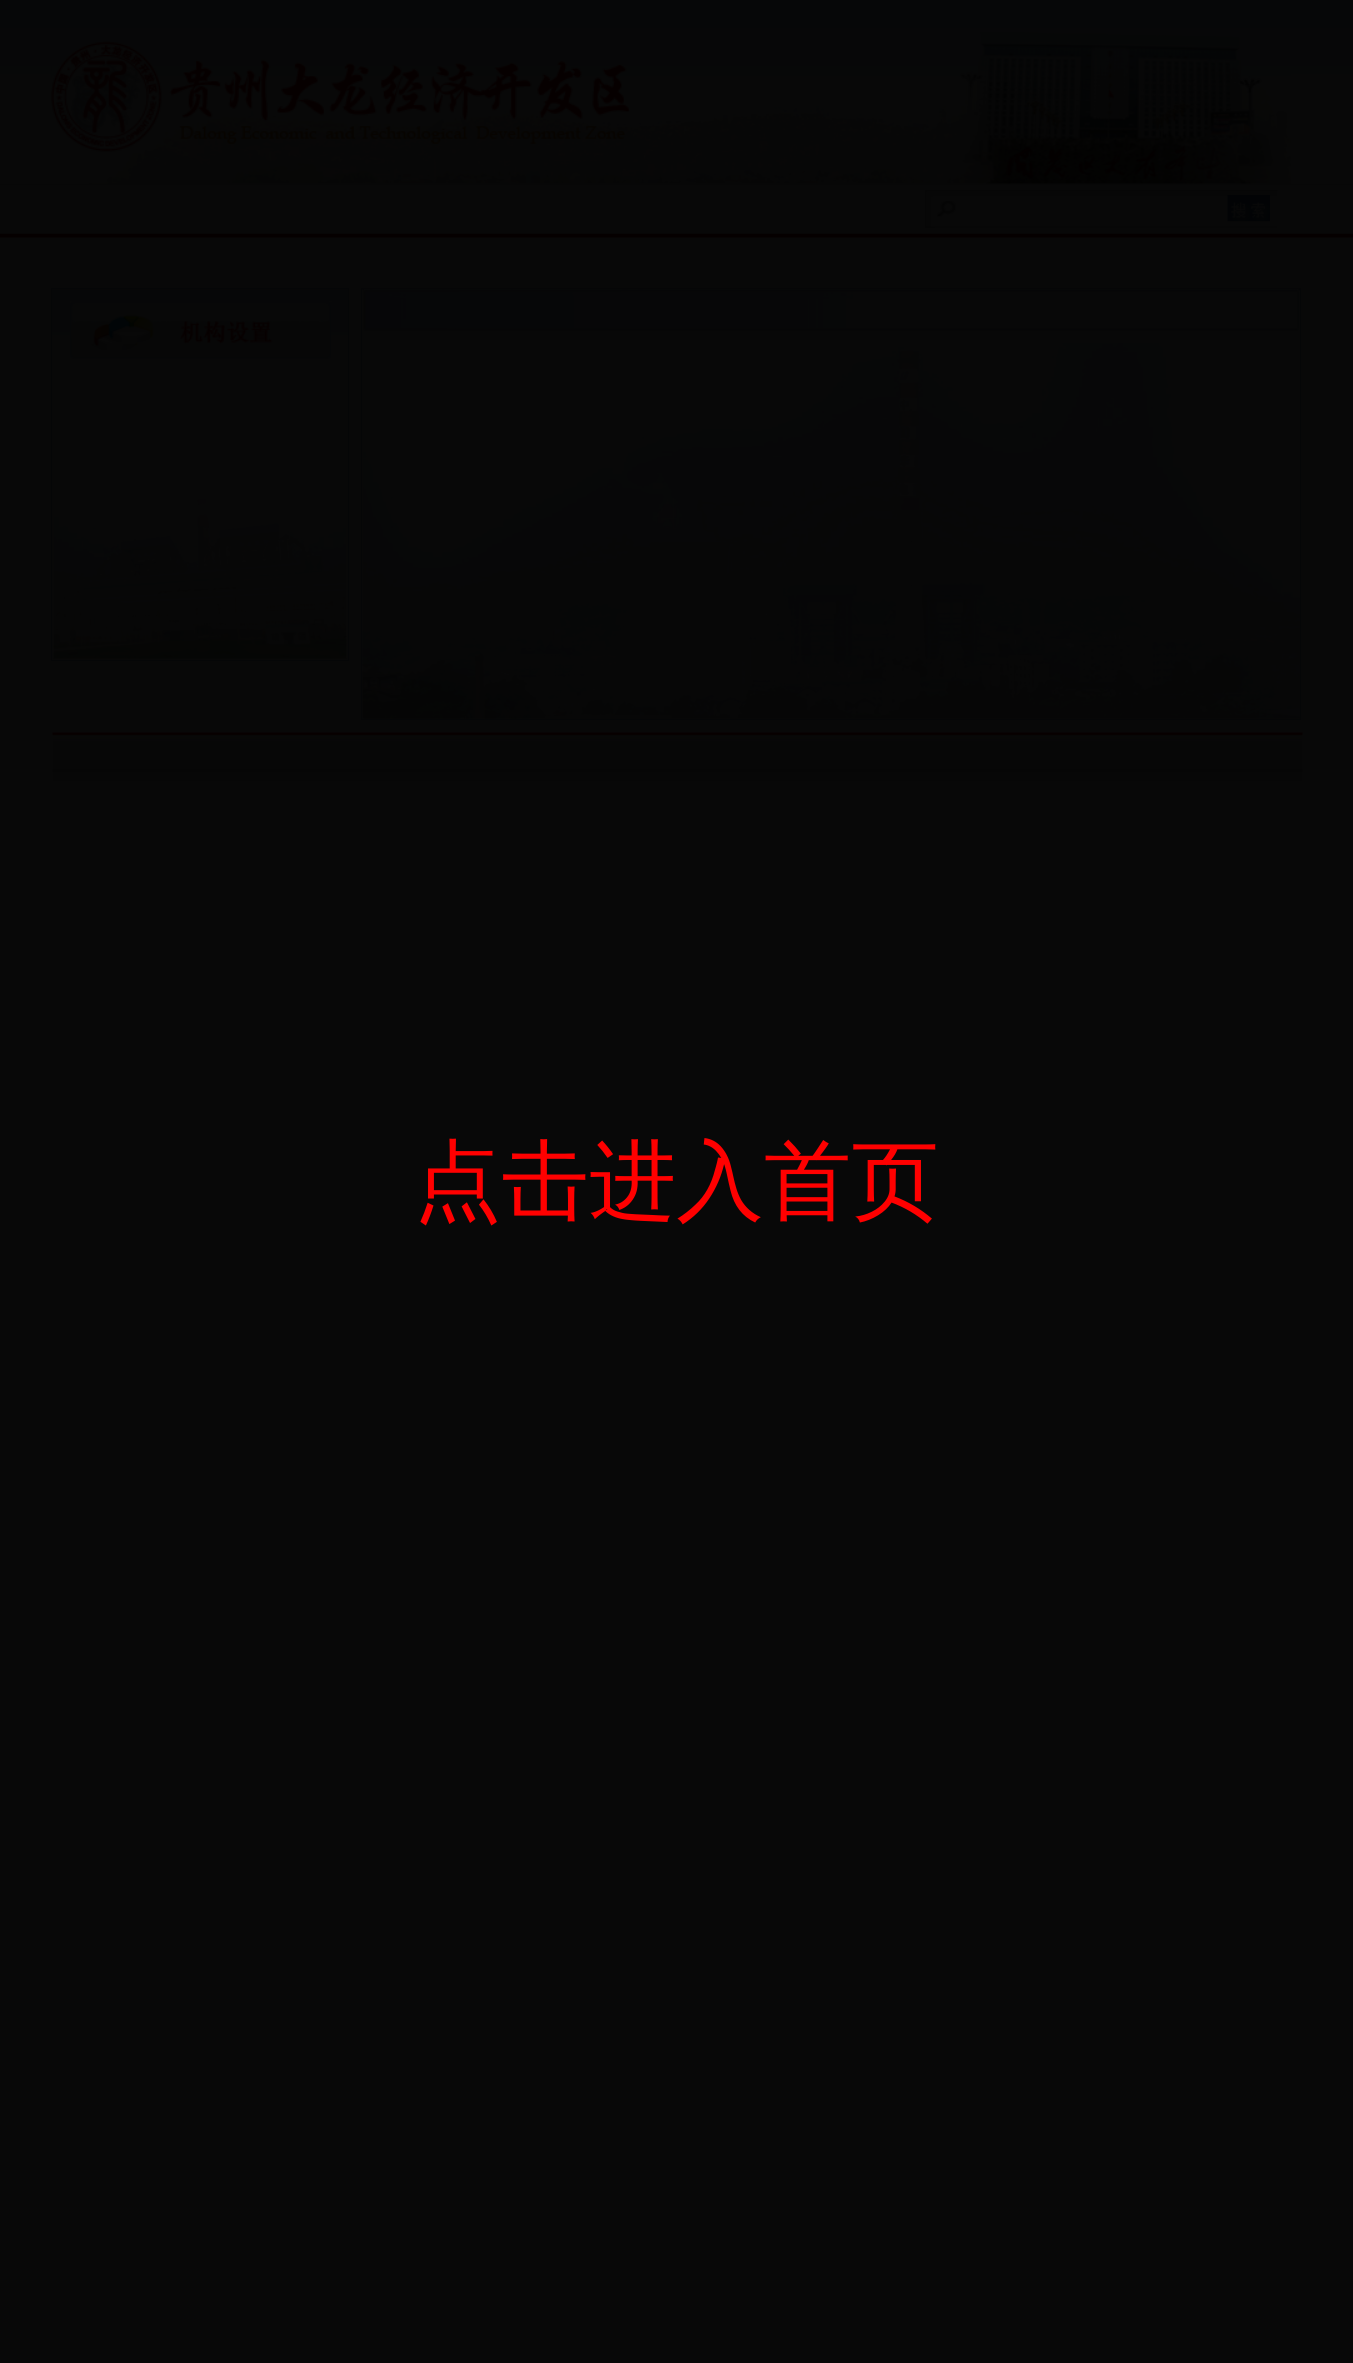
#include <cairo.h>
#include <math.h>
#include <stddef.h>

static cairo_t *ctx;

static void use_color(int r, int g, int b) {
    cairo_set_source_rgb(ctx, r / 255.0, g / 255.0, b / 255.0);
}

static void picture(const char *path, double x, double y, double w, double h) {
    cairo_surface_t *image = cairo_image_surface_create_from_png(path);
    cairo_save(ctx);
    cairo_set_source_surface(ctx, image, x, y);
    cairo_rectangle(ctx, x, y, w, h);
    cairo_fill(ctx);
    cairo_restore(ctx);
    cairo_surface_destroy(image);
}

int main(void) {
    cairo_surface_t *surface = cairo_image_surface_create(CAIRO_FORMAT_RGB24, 1353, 2363);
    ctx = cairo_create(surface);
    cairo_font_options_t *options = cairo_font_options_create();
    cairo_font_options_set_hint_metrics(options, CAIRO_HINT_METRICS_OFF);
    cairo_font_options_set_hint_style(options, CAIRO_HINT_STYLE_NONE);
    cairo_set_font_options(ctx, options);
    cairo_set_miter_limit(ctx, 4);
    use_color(8, 8, 8);
    cairo_paint(ctx);
    picture("img1.png", 0, 0, 1353, 74);
    picture("img2.png", 51, 32, 1240, 152);
    picture("img3.png", 0, 183, 1353, 55);
    picture("img4.png", 925, 190, 353, 38);
    picture("img5.png", 925, 191, 10, 37);
    picture("img6.png", 937, 201, 19, 16);
    picture("img7.png", 1227, 195, 43, 27);
    picture("img8.png", 52, 289, 296, 46);
    cairo_rectangle(ctx, 51.5, 288.5, 297, 372);
    use_color(5, 6, 7);
    cairo_set_line_width(ctx, 1);
    cairo_stroke(ctx);
    picture("img9.png", 70, 301, 262, 58);
    picture("img10.png", 53, 499, 294, 160);
    picture("img11.png", 362, 343, 938, 376);
    cairo_rectangle(ctx, 361.5, 288.5, 939, 431);
    cairo_stroke(ctx);
    picture("img12.png", 362, 288, 938, 43);
    picture("img13.png", 52, 732, 1251, 49);
    cairo_select_font_face(ctx, "WenQuanYi Zen Hei Medium", CAIRO_FONT_SLANT_NORMAL, CAIRO_FONT_WEIGHT_NORMAL);
    cairo_set_font_size(ctx, 87.5);
    use_color(255, 0, 0);
    cairo_move_to(ctx, 414, 1211);
    cairo_show_text(ctx, "点击进入首页");
    cairo_surface_write_to_png(surface, "result.png");
    cairo_font_options_destroy(options);
    cairo_destroy(ctx);
    cairo_surface_destroy(surface);
    return 0;
}
